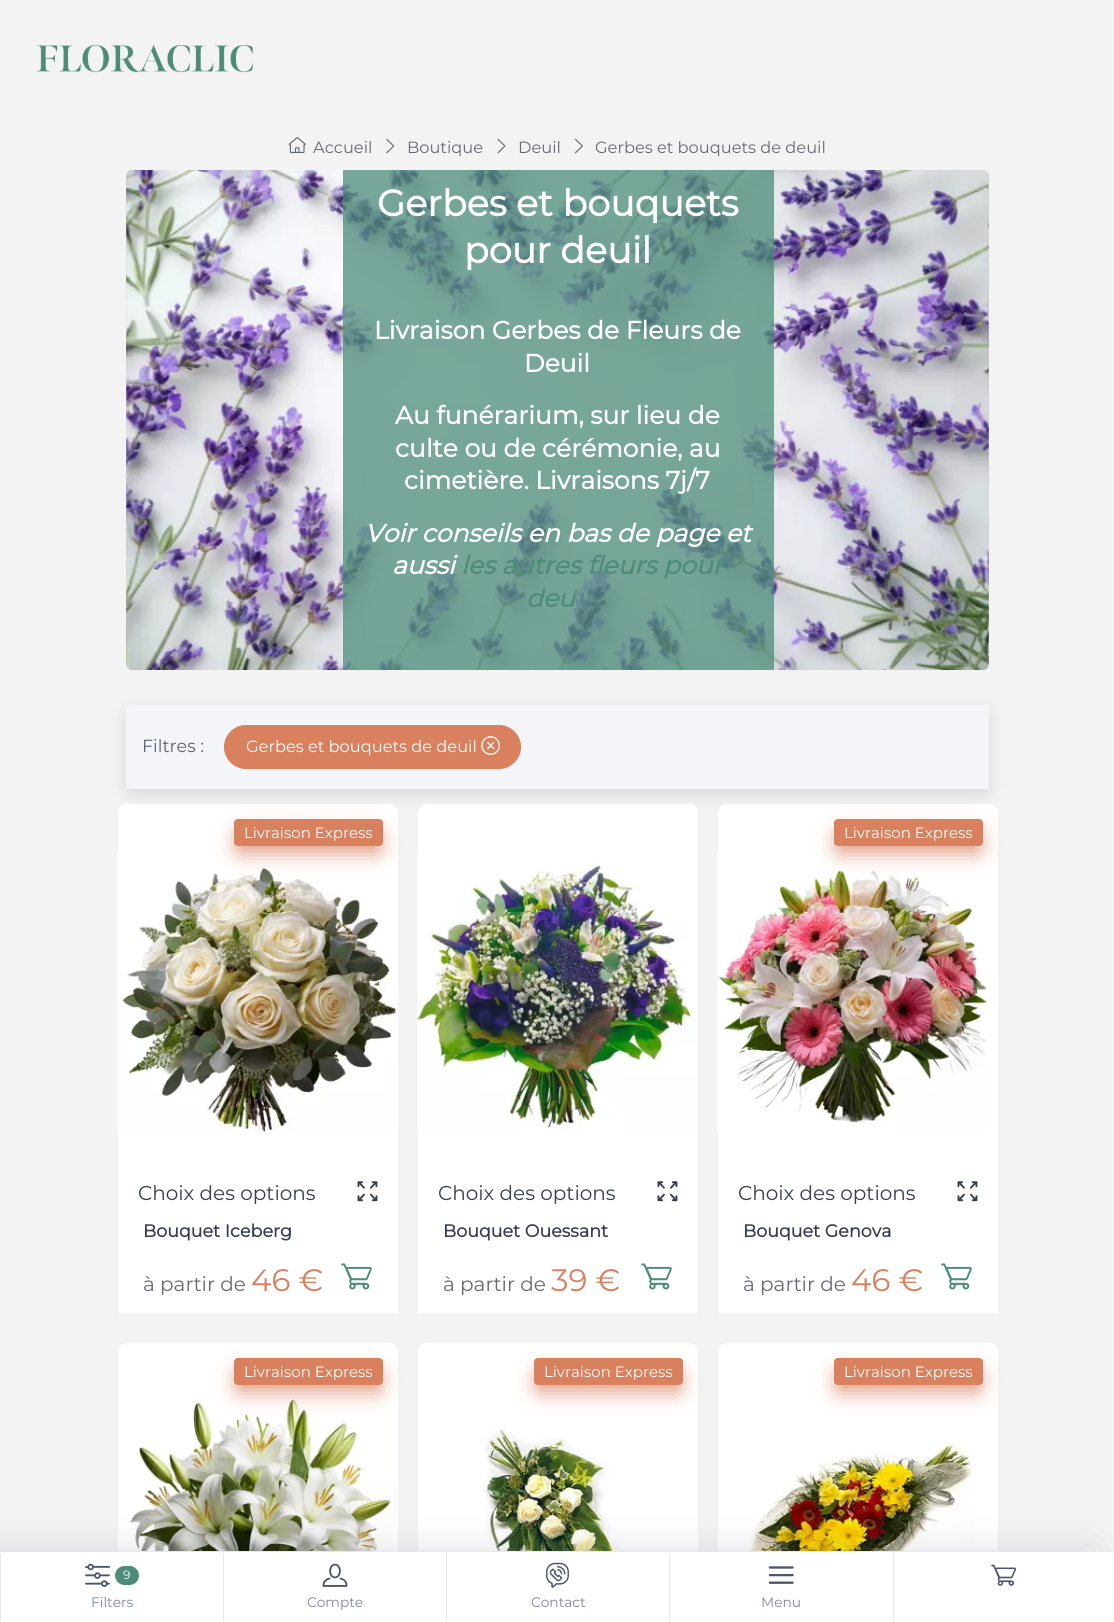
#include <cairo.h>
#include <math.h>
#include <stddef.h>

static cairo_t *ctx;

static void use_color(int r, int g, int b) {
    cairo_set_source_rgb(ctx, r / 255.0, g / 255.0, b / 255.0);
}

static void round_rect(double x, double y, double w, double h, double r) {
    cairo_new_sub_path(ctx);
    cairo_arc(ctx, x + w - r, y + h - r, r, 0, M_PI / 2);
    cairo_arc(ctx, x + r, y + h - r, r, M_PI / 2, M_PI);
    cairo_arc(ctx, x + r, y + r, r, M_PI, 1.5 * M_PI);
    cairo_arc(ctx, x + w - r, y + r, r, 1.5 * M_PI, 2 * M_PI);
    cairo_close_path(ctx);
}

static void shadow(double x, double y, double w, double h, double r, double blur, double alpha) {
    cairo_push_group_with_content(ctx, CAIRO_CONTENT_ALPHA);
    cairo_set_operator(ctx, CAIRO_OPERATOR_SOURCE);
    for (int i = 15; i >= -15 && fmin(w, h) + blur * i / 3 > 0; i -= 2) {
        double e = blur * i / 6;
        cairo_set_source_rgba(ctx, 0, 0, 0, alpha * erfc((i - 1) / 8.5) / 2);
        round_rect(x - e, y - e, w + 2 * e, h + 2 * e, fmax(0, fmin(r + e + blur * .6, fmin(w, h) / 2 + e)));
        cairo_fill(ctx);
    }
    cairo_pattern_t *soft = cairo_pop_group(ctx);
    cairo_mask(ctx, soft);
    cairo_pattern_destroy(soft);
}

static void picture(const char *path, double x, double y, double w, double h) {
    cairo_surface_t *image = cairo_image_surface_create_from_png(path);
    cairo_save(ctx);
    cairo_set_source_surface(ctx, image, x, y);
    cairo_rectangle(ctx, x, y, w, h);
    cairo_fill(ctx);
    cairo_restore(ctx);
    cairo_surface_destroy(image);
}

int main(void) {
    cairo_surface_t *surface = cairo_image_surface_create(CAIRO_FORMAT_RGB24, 1114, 1622);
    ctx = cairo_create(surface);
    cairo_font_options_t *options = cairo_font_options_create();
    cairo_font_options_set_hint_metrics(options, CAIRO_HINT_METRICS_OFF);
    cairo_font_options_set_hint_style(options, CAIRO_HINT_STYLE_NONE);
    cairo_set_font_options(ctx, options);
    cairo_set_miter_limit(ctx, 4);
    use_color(243, 243, 243);
    cairo_paint(ctx);
    picture("img1.png", 36, 45, 217, 28);
    picture("img2.png", 288, 137, 18, 17);
    cairo_select_font_face(ctx, "Montserrat Thin", CAIRO_FONT_SLANT_NORMAL, CAIRO_FONT_WEIGHT_NORMAL);
    cairo_set_font_size(ctx, 16.25);
    use_color(101, 107, 113);
    cairo_move_to(ctx, 313, 153);
    cairo_show_text(ctx, "Accueil");
    picture("img3.png", 386, 138, 9, 16);
    cairo_move_to(ctx, 407, 153);
    cairo_show_text(ctx, "Boutique");
    picture("img4.png", 497, 138, 9, 16);
    cairo_move_to(ctx, 518, 153);
    cairo_show_text(ctx, "Deuil");
    picture("img5.png", 575, 138, 8, 16);
    cairo_move_to(ctx, 595, 153);
    cairo_show_text(ctx, "Gerbes et bouquets de deuil");
    use_color(204, 204, 204);
    round_rect(126, 170, 863, 500, 6);
    cairo_fill(ctx);
    picture("img6.png", 126, 170, 863, 500);
    cairo_set_source_rgba(ctx, 0.302, 0.549, 0.478, 0.75);
    cairo_rectangle(ctx, 343, 170, 431, 500);
    cairo_fill(ctx);
    cairo_select_font_face(ctx, "Montserrat", CAIRO_FONT_SLANT_NORMAL, CAIRO_FONT_WEIGHT_BOLD);
    cairo_set_font_size(ctx, 36.5);
    use_color(255, 255, 255);
    cairo_move_to(ctx, 377, 216);
    cairo_show_text(ctx, "Gerbes et bouquets");
    cairo_move_to(ctx, 464, 263);
    cairo_show_text(ctx, "pour deuil");
    cairo_set_font_size(ctx, 25);
    cairo_move_to(ctx, 374, 339);
    cairo_show_text(ctx, "Livraison Gerbes de Fleurs de");
    cairo_move_to(ctx, 524, 372);
    cairo_show_text(ctx, "Deuil");
    cairo_move_to(ctx, 395, 424);
    cairo_show_text(ctx, "Au funérarium, sur lieu de");
    cairo_move_to(ctx, 395, 457);
    cairo_show_text(ctx, "culte ou de cérémonie, au");
    cairo_move_to(ctx, 404, 489);
    cairo_show_text(ctx, "cimetière. Livraisons 7j/7");
    cairo_select_font_face(ctx, "Montserrat", CAIRO_FONT_SLANT_ITALIC, CAIRO_FONT_WEIGHT_BOLD);
    cairo_move_to(ctx, 365, 542);
    cairo_show_text(ctx, "Voir conseils en bas de page et");
    cairo_move_to(ctx, 392, 574);
    cairo_show_text(ctx, "aussi");
    use_color(77, 140, 122);
    cairo_move_to(ctx, 461, 574);
    cairo_show_text(ctx, "les autres fleurs pour");
    cairo_move_to(ctx, 526, 607);
    cairo_show_text(ctx, "deu");
    use_color(0, 0, 0);
    shadow(134, 719, 847, 69, 1, 15, 0.1);
    shadow(128, 711, 860, 82, 0, 7.5, 0.06);
    use_color(243, 245, 249);
    cairo_rectangle(ctx, 126, 705, 863, 84);
    cairo_fill(ctx);
    cairo_select_font_face(ctx, "Montserrat Thin", CAIRO_FONT_SLANT_NORMAL, CAIRO_FONT_WEIGHT_NORMAL);
    cairo_set_font_size(ctx, 17.5);
    use_color(93, 100, 114);
    cairo_move_to(ctx, 142, 752);
    cairo_show_text(ctx, "Filtres :");
    use_color(217, 128, 95);
    round_rect(224.5, 725.5, 296, 43, 21.5);
    cairo_fill_preserve(ctx);
    cairo_set_line_width(ctx, 1);
    cairo_stroke(ctx);
    cairo_set_font_size(ctx, 16.25);
    use_color(255, 255, 255);
    cairo_move_to(ctx, 246, 752);
    cairo_show_text(ctx, "Gerbes et bouquets de deuil");
    picture("img7.png", 481, 736, 19, 19);
    round_rect(118, 804, 280, 509, 9);
    cairo_fill(ctx);
    picture("img8.png", 117, 851, 281, 281);
    use_color(217, 128, 95);
    shadow(239, 834, 139, 17, 0, 11, 0.9);
    use_color(217, 128, 95);
    round_rect(234, 819, 149, 27, 4);
    cairo_fill(ctx);
    cairo_set_font_size(ctx, 15);
    use_color(255, 255, 255);
    cairo_move_to(ctx, 244, 838);
    cairo_show_text(ctx, "Livraison Express");
    cairo_set_font_size(ctx, 20);
    use_color(55, 63, 80);
    cairo_move_to(ctx, 138, 1200);
    cairo_show_text(ctx, "Choix des options");
    picture("img9.png", 357, 1181, 21, 21);
    use_color(255, 255, 255);
    cairo_rectangle(ctx, 118, 1306, 280, 7);
    cairo_fill(ctx);
    cairo_select_font_face(ctx, "Montserrat", CAIRO_FONT_SLANT_NORMAL, CAIRO_FONT_WEIGHT_BOLD);
    cairo_set_font_size(ctx, 17.5);
    use_color(55, 63, 80);
    cairo_move_to(ctx, 143, 1237);
    cairo_show_text(ctx, "Bouquet Iceberg");
    cairo_select_font_face(ctx, "Montserrat Thin", CAIRO_FONT_SLANT_NORMAL, CAIRO_FONT_WEIGHT_NORMAL);
    cairo_set_font_size(ctx, 20);
    use_color(101, 107, 113);
    cairo_move_to(ctx, 143, 1291);
    cairo_show_text(ctx, "à partir de");
    cairo_set_font_size(ctx, 31);
    use_color(217, 128, 95);
    cairo_move_to(ctx, 251, 1291);
    cairo_show_text(ctx, "46 €");
    picture("img10.png", 341, 1263, 31, 27);
    use_color(255, 255, 255);
    round_rect(418, 804, 280, 509, 9);
    cairo_fill(ctx);
    picture("img11.png", 417, 851, 277, 280);
    cairo_set_font_size(ctx, 20);
    use_color(55, 63, 80);
    cairo_move_to(ctx, 438, 1200);
    cairo_show_text(ctx, "Choix des options");
    picture("img9.png", 657, 1181, 21, 21);
    use_color(255, 255, 255);
    cairo_rectangle(ctx, 418, 1306, 280, 7);
    cairo_fill(ctx);
    cairo_select_font_face(ctx, "Montserrat", CAIRO_FONT_SLANT_NORMAL, CAIRO_FONT_WEIGHT_BOLD);
    cairo_set_font_size(ctx, 17.5);
    use_color(55, 63, 80);
    cairo_move_to(ctx, 443, 1237);
    cairo_show_text(ctx, "Bouquet Ouessant");
    cairo_select_font_face(ctx, "Montserrat Thin", CAIRO_FONT_SLANT_NORMAL, CAIRO_FONT_WEIGHT_NORMAL);
    cairo_set_font_size(ctx, 20);
    use_color(101, 107, 113);
    cairo_move_to(ctx, 443, 1291);
    cairo_show_text(ctx, "à partir de");
    cairo_set_font_size(ctx, 31);
    use_color(217, 128, 95);
    cairo_move_to(ctx, 551, 1291);
    cairo_show_text(ctx, "39 €");
    picture("img10.png", 641, 1263, 31, 27);
    use_color(255, 255, 255);
    round_rect(718, 804, 280, 509, 9);
    cairo_fill(ctx);
    picture("img12.png", 717, 851, 271, 280);
    use_color(217, 128, 95);
    shadow(839, 834, 139, 17, 0, 11, 0.9);
    use_color(217, 128, 95);
    round_rect(834, 819, 149, 27, 4);
    cairo_fill(ctx);
    cairo_set_font_size(ctx, 15);
    use_color(255, 255, 255);
    cairo_move_to(ctx, 844, 838);
    cairo_show_text(ctx, "Livraison Express");
    cairo_set_font_size(ctx, 20);
    use_color(55, 63, 80);
    cairo_move_to(ctx, 738, 1200);
    cairo_show_text(ctx, "Choix des options");
    picture("img9.png", 957, 1181, 21, 21);
    use_color(255, 255, 255);
    cairo_rectangle(ctx, 718, 1306, 280, 7);
    cairo_fill(ctx);
    cairo_select_font_face(ctx, "Montserrat", CAIRO_FONT_SLANT_NORMAL, CAIRO_FONT_WEIGHT_BOLD);
    cairo_set_font_size(ctx, 17.5);
    use_color(55, 63, 80);
    cairo_move_to(ctx, 743, 1237);
    cairo_show_text(ctx, "Bouquet Genova");
    cairo_select_font_face(ctx, "Montserrat Thin", CAIRO_FONT_SLANT_NORMAL, CAIRO_FONT_WEIGHT_NORMAL);
    cairo_set_font_size(ctx, 20);
    use_color(101, 107, 113);
    cairo_move_to(ctx, 743, 1291);
    cairo_show_text(ctx, "à partir de");
    cairo_set_font_size(ctx, 31);
    use_color(217, 128, 95);
    cairo_move_to(ctx, 851, 1291);
    cairo_show_text(ctx, "46 €");
    picture("img10.png", 941, 1263, 31, 27);
    use_color(255, 255, 255);
    round_rect(118, 1343, 280, 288, 9);
    cairo_fill(ctx);
    picture("img13.png", 129, 1397, 265, 154);
    use_color(217, 128, 95);
    shadow(239, 1373, 139, 17, 0, 11, 0.9);
    use_color(217, 128, 95);
    round_rect(234, 1358, 149, 27, 4);
    cairo_fill(ctx);
    cairo_set_font_size(ctx, 15);
    use_color(255, 255, 255);
    cairo_move_to(ctx, 244, 1377);
    cairo_show_text(ctx, "Livraison Express");
    round_rect(418, 1343, 280, 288, 9);
    cairo_fill(ctx);
    use_color(217, 128, 95);
    shadow(539, 1373, 139, 17, 0, 11, 0.9);
    use_color(217, 128, 95);
    round_rect(534, 1358, 149, 27, 4);
    cairo_fill(ctx);
    use_color(255, 255, 255);
    cairo_move_to(ctx, 544, 1377);
    cairo_show_text(ctx, "Livraison Express");
    picture("img14.png", 484, 1429, 143, 122);
    round_rect(718, 1343, 280, 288, 9);
    cairo_fill(ctx);
    use_color(217, 128, 95);
    shadow(839, 1373, 139, 17, 0, 11, 0.9);
    use_color(217, 128, 95);
    round_rect(834, 1358, 149, 27, 4);
    cairo_fill(ctx);
    use_color(255, 255, 255);
    cairo_move_to(ctx, 844, 1377);
    cairo_show_text(ctx, "Livraison Express");
    picture("img15.png", 740, 1444, 234, 107);
    use_color(43, 52, 69);
    shadow(-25, 1551, 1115, 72, 0, 20, 0.15);
    use_color(255, 255, 255);
    cairo_rectangle(ctx, 0, 1552, 1114, 70);
    cairo_fill(ctx);
    use_color(227, 233, 239);
    cairo_rectangle(ctx, 0, 1551, 1114, 1);
    cairo_fill(ctx);
    cairo_rectangle(ctx, 0, 1553, 1, 69);
    cairo_fill(ctx);
    picture("img16.png", 85, 1563, 25, 24);
    use_color(77, 140, 122);
    round_rect(115, 1566, 24, 19, 9.5);
    cairo_fill(ctx);
    cairo_set_font_size(ctx, 12);
    use_color(255, 255, 255);
    cairo_move_to(ctx, 123, 1579);
    cairo_show_text(ctx, "9");
    cairo_set_font_size(ctx, 13.75);
    use_color(125, 135, 156);
    cairo_move_to(ctx, 91, 1607);
    cairo_show_text(ctx, "Filters");
    use_color(227, 233, 239);
    cairo_rectangle(ctx, 223, 1553, 1, 69);
    cairo_fill(ctx);
    picture("img17.png", 322, 1563, 26, 24);
    use_color(125, 135, 156);
    cairo_move_to(ctx, 307, 1607);
    cairo_show_text(ctx, "Compte");
    use_color(227, 233, 239);
    cairo_rectangle(ctx, 446, 1553, 1, 69);
    cairo_fill(ctx);
    picture("img18.png", 546, 1562, 23, 26);
    use_color(125, 135, 156);
    cairo_move_to(ctx, 531, 1607);
    cairo_show_text(ctx, "Contact");
    use_color(227, 233, 239);
    cairo_rectangle(ctx, 669, 1553, 1, 69);
    cairo_fill(ctx);
    picture("img19.png", 768, 1566, 26, 18);
    use_color(125, 135, 156);
    cairo_move_to(ctx, 761, 1607);
    cairo_show_text(ctx, "Menu");
    use_color(227, 233, 239);
    cairo_rectangle(ctx, 893, 1553, 1, 69);
    cairo_fill(ctx);
    picture("img20.png", 991, 1564, 26, 22);
    cairo_surface_write_to_png(surface, "result.png");
    cairo_font_options_destroy(options);
    cairo_destroy(ctx);
    cairo_surface_destroy(surface);
    return 0;
}
